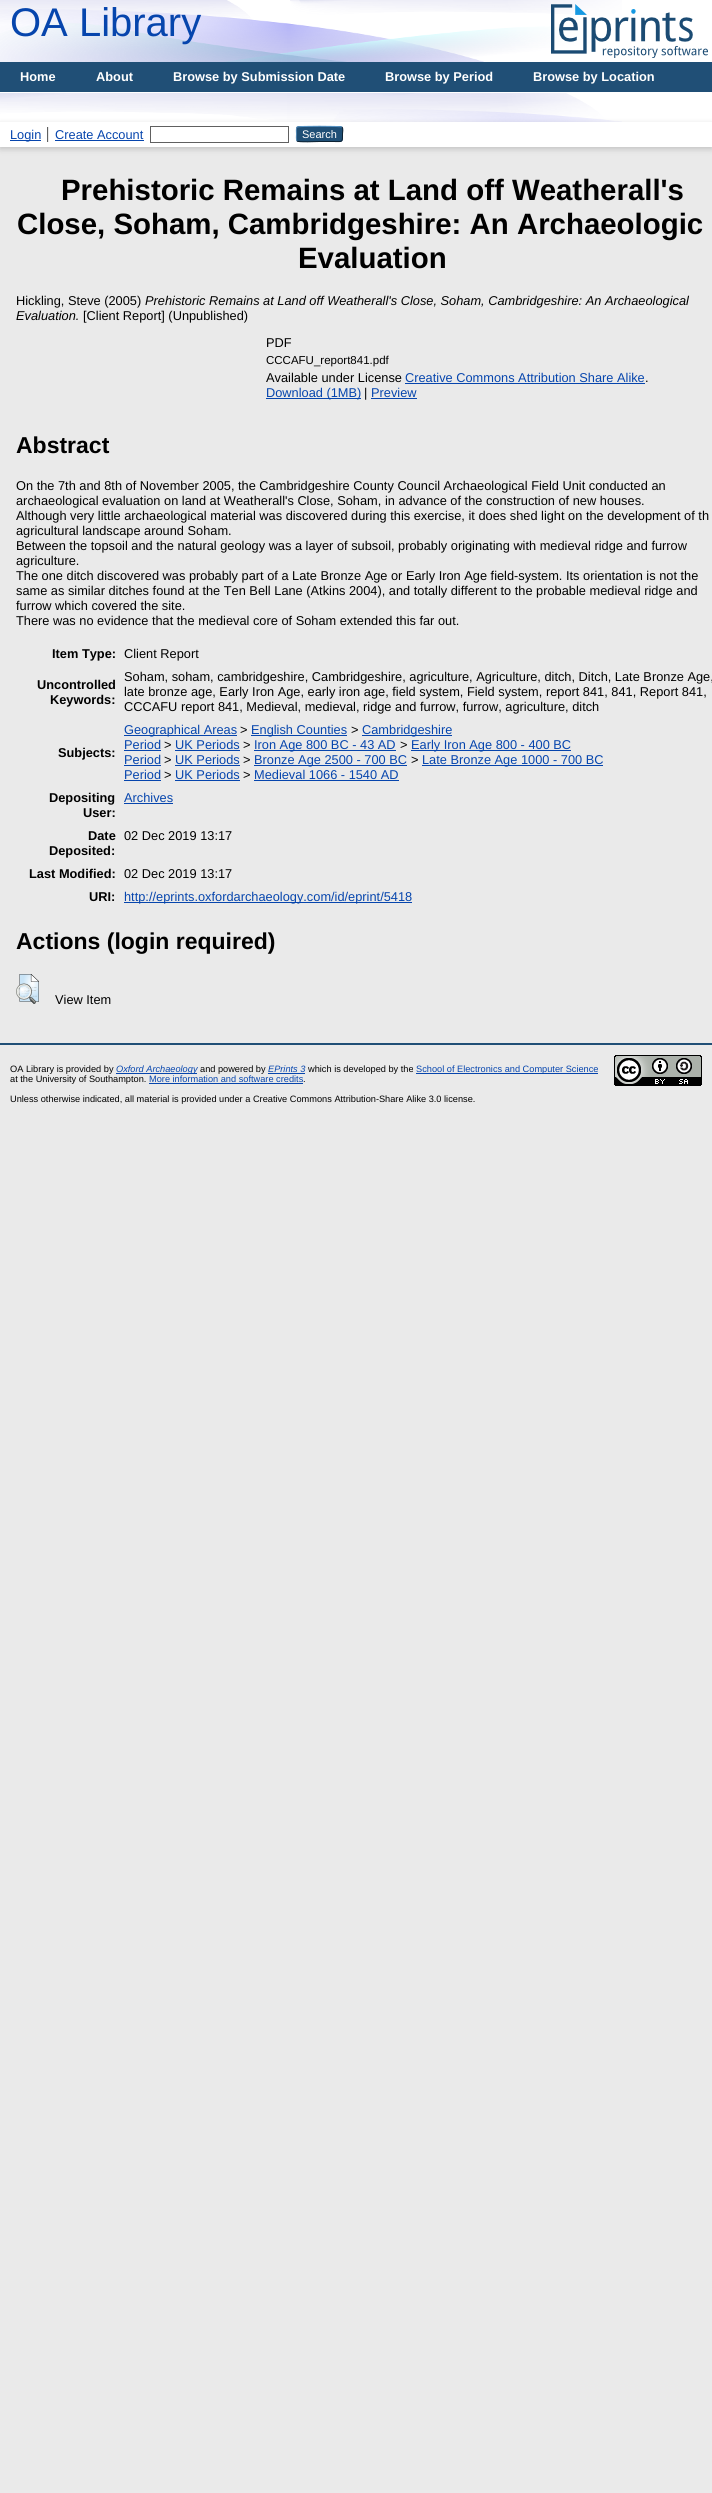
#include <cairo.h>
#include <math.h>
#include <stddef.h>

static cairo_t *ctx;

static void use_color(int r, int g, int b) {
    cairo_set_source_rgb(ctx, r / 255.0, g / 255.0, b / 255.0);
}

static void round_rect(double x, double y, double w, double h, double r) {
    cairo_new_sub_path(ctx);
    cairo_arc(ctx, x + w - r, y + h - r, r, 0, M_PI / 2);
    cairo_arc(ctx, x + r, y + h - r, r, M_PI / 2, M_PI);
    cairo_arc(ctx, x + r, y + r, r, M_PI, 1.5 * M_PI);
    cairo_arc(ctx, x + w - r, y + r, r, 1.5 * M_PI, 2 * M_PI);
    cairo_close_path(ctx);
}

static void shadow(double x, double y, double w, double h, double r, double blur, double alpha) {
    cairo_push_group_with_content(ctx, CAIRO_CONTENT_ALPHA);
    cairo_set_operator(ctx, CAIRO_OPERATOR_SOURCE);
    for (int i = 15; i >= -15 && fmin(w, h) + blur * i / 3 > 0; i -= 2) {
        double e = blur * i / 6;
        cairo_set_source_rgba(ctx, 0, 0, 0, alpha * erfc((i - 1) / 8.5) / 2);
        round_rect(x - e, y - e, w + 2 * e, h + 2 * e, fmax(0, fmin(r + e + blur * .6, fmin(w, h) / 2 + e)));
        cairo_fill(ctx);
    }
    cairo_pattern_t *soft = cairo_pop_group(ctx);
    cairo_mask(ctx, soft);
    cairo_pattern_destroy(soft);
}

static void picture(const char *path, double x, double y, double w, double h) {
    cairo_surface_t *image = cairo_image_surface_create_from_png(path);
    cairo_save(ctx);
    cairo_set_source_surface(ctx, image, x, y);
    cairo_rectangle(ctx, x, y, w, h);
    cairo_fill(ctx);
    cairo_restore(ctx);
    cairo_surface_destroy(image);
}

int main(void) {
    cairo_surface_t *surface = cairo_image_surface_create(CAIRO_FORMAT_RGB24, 712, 2493);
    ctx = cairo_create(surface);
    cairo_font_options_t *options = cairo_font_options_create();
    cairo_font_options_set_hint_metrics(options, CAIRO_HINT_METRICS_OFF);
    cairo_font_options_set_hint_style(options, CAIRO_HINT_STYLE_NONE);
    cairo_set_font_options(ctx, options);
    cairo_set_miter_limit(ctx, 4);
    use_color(234, 234, 234);
    cairo_paint(ctx);
    use_color(255, 255, 255);
    cairo_rectangle(ctx, 0, 0, 712, 122);
    cairo_fill(ctx);
    picture("img1.png", 0, 0, 622, 122);
    cairo_select_font_face(ctx, "Liberation Sans", CAIRO_FONT_SLANT_NORMAL, CAIRO_FONT_WEIGHT_NORMAL);
    cairo_set_font_size(ctx, 40);
    use_color(6, 69, 173);
    cairo_move_to(ctx, 10, 36);
    cairo_show_text(ctx, "OA Library");
    picture("img2.png", 551, 4, 157, 54);
    use_color(32, 79, 118);
    cairo_rectangle(ctx, 0, 62, 712, 30);
    cairo_fill(ctx);
    use_color(255, 255, 255);
    cairo_rectangle(ctx, 0, 92, 566, 1);
    cairo_fill(ctx);
    cairo_select_font_face(ctx, "Liberation Sans", CAIRO_FONT_SLANT_NORMAL, CAIRO_FONT_WEIGHT_BOLD);
    cairo_set_font_size(ctx, 12.8);
    cairo_move_to(ctx, 20, 81);
    cairo_show_text(ctx, "Home");
    cairo_move_to(ctx, 96, 81);
    cairo_show_text(ctx, "About");
    cairo_move_to(ctx, 173, 81);
    cairo_show_text(ctx, "Browse by Submission Date");
    cairo_move_to(ctx, 385, 81);
    cairo_show_text(ctx, "Browse by Period");
    cairo_move_to(ctx, 533, 81);
    cairo_show_text(ctx, "Browse by Location");
    use_color(100, 100, 100);
    shadow(0, 124, 712, 25, 0, 3, 0.3);
    use_color(255, 255, 255);
    cairo_rectangle(ctx, 0, 122, 712, 25);
    cairo_fill(ctx);
    use_color(6, 69, 173);
    cairo_rectangle(ctx, 10, 140, 31, 1);
    cairo_fill(ctx);
    cairo_select_font_face(ctx, "Liberation Sans", CAIRO_FONT_SLANT_NORMAL, CAIRO_FONT_WEIGHT_NORMAL);
    cairo_move_to(ctx, 10, 139);
    cairo_show_text(ctx, "Login");
    use_color(96, 96, 96);
    cairo_rectangle(ctx, 47, 127, 1, 15);
    cairo_fill(ctx);
    use_color(6, 69, 173);
    cairo_move_to(ctx, 55, 139);
    cairo_show_text(ctx, "Create Account");
    use_color(232, 232, 232);
    cairo_rectangle(ctx, 48, 127, 1, 15);
    cairo_fill(ctx);
    use_color(6, 69, 173);
    cairo_rectangle(ctx, 55, 140, 89, 1);
    cairo_fill(ctx);
    cairo_rectangle(ctx, 150.5, 126.5, 138, 16);
    use_color(96, 96, 96);
    cairo_set_line_width(ctx, 1);
    cairo_stroke(ctx);
    use_color(31, 79, 118);
    round_rect(296, 126, 47, 16, 3);
    cairo_fill(ctx);
    cairo_new_path(ctx);
    cairo_move_to(ctx, 297, 127);
    cairo_curve_to(ctx, 298.5, 126, 340.5, 126, 342, 127);
    use_color(91, 151, 199);
    cairo_stroke(ctx);
    cairo_new_path(ctx);
    cairo_move_to(ctx, 342, 127);
    cairo_curve_to(ctx, 343.5, 129, 342.5, 132, 342.5, 134);
    cairo_curve_to(ctx, 342.5, 143, 342.5, 141.5, 333, 141.5);
    cairo_line_to(ctx, 319.5, 141.5);
    cairo_curve_to(ctx, 316, 141.5, 299, 142.5, 297, 141);
    use_color(13, 33, 49);
    cairo_stroke(ctx);
    cairo_new_path(ctx);
    cairo_move_to(ctx, 297, 141);
    cairo_curve_to(ctx, 296, 139.5, 296.5, 135.5, 296.5, 134);
    cairo_curve_to(ctx, 296.5, 132.5, 296, 128.5, 297, 127);
    use_color(82, 135, 179);
    cairo_stroke(ctx);
    cairo_set_font_size(ctx, 11);
    use_color(255, 255, 255);
    cairo_move_to(ctx, 302, 138);
    cairo_show_text(ctx, "Search");
    cairo_select_font_face(ctx, "Liberation Sans", CAIRO_FONT_SLANT_NORMAL, CAIRO_FONT_WEIGHT_BOLD);
    cairo_set_font_size(ctx, 29.4);
    use_color(0, 0, 0);
    cairo_move_to(ctx, 61, 200);
    cairo_show_text(ctx, "Prehistoric Remains at Land off Weatherall's");
    cairo_move_to(ctx, 17, 234);
    cairo_show_text(ctx, "Close, Soham, Cambridgeshire: An Archaeologic");
    cairo_move_to(ctx, 298, 268);
    cairo_show_text(ctx, "Evaluation");
    cairo_select_font_face(ctx, "Liberation Sans", CAIRO_FONT_SLANT_NORMAL, CAIRO_FONT_WEIGHT_NORMAL);
    cairo_set_font_size(ctx, 12.8);
    cairo_move_to(ctx, 16, 305);
    cairo_show_text(ctx, "Hickling, Steve (2005)");
    cairo_select_font_face(ctx, "Liberation Sans", CAIRO_FONT_SLANT_ITALIC, CAIRO_FONT_WEIGHT_NORMAL);
    cairo_move_to(ctx, 145, 305);
    cairo_show_text(ctx, "Prehistoric Remains at Land off Weatherall's Close, Soham, Cambridgeshire: An Archaeological");
    cairo_move_to(ctx, 16, 320);
    cairo_show_text(ctx, "Evaluation.");
    cairo_select_font_face(ctx, "Liberation Sans", CAIRO_FONT_SLANT_NORMAL, CAIRO_FONT_WEIGHT_NORMAL);
    cairo_move_to(ctx, 83, 320);
    cairo_show_text(ctx, "[Client Report] (Unpublished)");
    cairo_move_to(ctx, 266, 347);
    cairo_show_text(ctx, "PDF");
    cairo_set_font_size(ctx, 11.5);
    cairo_move_to(ctx, 266, 364);
    cairo_show_text(ctx, "CCCAFU_report841.pdf");
    cairo_set_font_size(ctx, 12.8);
    cairo_move_to(ctx, 266, 382);
    cairo_show_text(ctx, "Available under License");
    use_color(6, 69, 173);
    cairo_move_to(ctx, 405, 382);
    cairo_show_text(ctx, "Creative Commons Attribution Share Alike");
    use_color(0, 0, 0);
    cairo_move_to(ctx, 645, 382);
    cairo_show_text(ctx, ".");
    use_color(6, 69, 173);
    cairo_rectangle(ctx, 405, 383, 240, 1);
    cairo_fill(ctx);
    cairo_rectangle(ctx, 266, 398, 95, 1);
    cairo_fill(ctx);
    cairo_move_to(ctx, 266, 397);
    cairo_show_text(ctx, "Download (1MB)");
    use_color(0, 0, 0);
    cairo_move_to(ctx, 364, 397);
    cairo_show_text(ctx, "|");
    use_color(6, 69, 173);
    cairo_move_to(ctx, 371, 397);
    cairo_show_text(ctx, "Preview");
    cairo_rectangle(ctx, 371, 398, 46, 1);
    cairo_fill(ctx);
    cairo_select_font_face(ctx, "Liberation Sans", CAIRO_FONT_SLANT_NORMAL, CAIRO_FONT_WEIGHT_BOLD);
    cairo_set_font_size(ctx, 23);
    use_color(0, 0, 0);
    cairo_move_to(ctx, 16, 453);
    cairo_show_text(ctx, "Abstract");
    cairo_select_font_face(ctx, "Liberation Sans", CAIRO_FONT_SLANT_NORMAL, CAIRO_FONT_WEIGHT_NORMAL);
    cairo_set_font_size(ctx, 12.8);
    cairo_move_to(ctx, 16, 490);
    cairo_show_text(ctx, "On the 7th and 8th of November 2005, the Cambridgeshire County Council Archaeological Field Unit conducted an");
    cairo_move_to(ctx, 16, 505);
    cairo_show_text(ctx, "archaeological evaluation on land at Weatherall's Close, Soham, in advance of the construction of new houses.");
    cairo_move_to(ctx, 16, 520);
    cairo_show_text(ctx, "Although very little archaeological material was discovered during this exercise, it does shed light on the development of th");
    cairo_move_to(ctx, 16, 535);
    cairo_show_text(ctx, "agricultural landscape around Soham.");
    cairo_move_to(ctx, 16, 550);
    cairo_show_text(ctx, "Between the topsoil and the natural geology was a layer of subsoil, probably originating with medieval ridge and furrow");
    cairo_move_to(ctx, 16, 565);
    cairo_show_text(ctx, "agriculture.");
    cairo_move_to(ctx, 16, 580);
    cairo_show_text(ctx, "The one ditch discovered was probably part of a Late Bronze Age or Early Iron Age field-system. Its orientation is not the");
    cairo_move_to(ctx, 16, 595);
    cairo_show_text(ctx, "same as similar ditches found at the Ten Bell Lane (Atkins 2004), and totally different to the probable medieval ridge and");
    cairo_move_to(ctx, 16, 610);
    cairo_show_text(ctx, "furrow which covered the site.");
    cairo_move_to(ctx, 16, 625);
    cairo_show_text(ctx, "There was no evidence that the medieval core of Soham extended this far out.");
    cairo_select_font_face(ctx, "Liberation Sans", CAIRO_FONT_SLANT_NORMAL, CAIRO_FONT_WEIGHT_BOLD);
    cairo_move_to(ctx, 52, 658);
    cairo_show_text(ctx, "Item Type:");
    cairo_select_font_face(ctx, "Liberation Sans", CAIRO_FONT_SLANT_NORMAL, CAIRO_FONT_WEIGHT_NORMAL);
    cairo_move_to(ctx, 124, 658);
    cairo_show_text(ctx, "Client Report");
    cairo_select_font_face(ctx, "Liberation Sans", CAIRO_FONT_SLANT_NORMAL, CAIRO_FONT_WEIGHT_BOLD);
    cairo_move_to(ctx, 37, 689);
    cairo_show_text(ctx, "Uncontrolled");
    cairo_move_to(ctx, 50, 704);
    cairo_show_text(ctx, "Keywords:");
    cairo_select_font_face(ctx, "Liberation Sans", CAIRO_FONT_SLANT_NORMAL, CAIRO_FONT_WEIGHT_NORMAL);
    cairo_move_to(ctx, 124, 681);
    cairo_show_text(ctx, "Soham, soham, cambridgeshire, Cambridgeshire, agriculture, Agriculture, ditch, Ditch, Late Bronze Age,");
    cairo_move_to(ctx, 124, 696);
    cairo_show_text(ctx, "late bronze age, Early Iron Age, early iron age, field system, Field system, report 841, 841, Report 841,");
    cairo_move_to(ctx, 124, 711);
    cairo_show_text(ctx, "CCCAFU report 841, Medieval, medieval, ridge and furrow, furrow, agriculture, ditch");
    cairo_select_font_face(ctx, "Liberation Sans", CAIRO_FONT_SLANT_NORMAL, CAIRO_FONT_WEIGHT_BOLD);
    cairo_move_to(ctx, 58, 757);
    cairo_show_text(ctx, "Subjects:");
    use_color(6, 69, 173);
    cairo_rectangle(ctx, 124, 735, 113, 1);
    cairo_fill(ctx);
    cairo_select_font_face(ctx, "Liberation Sans", CAIRO_FONT_SLANT_NORMAL, CAIRO_FONT_WEIGHT_NORMAL);
    cairo_move_to(ctx, 124, 734);
    cairo_show_text(ctx, "Geographical Areas");
    use_color(0, 0, 0);
    cairo_move_to(ctx, 240, 734);
    cairo_show_text(ctx, ">");
    use_color(6, 69, 173);
    cairo_rectangle(ctx, 251, 735, 96, 1);
    cairo_fill(ctx);
    cairo_move_to(ctx, 251, 734);
    cairo_show_text(ctx, "English Counties");
    use_color(0, 0, 0);
    cairo_move_to(ctx, 351, 734);
    cairo_show_text(ctx, ">");
    use_color(6, 69, 173);
    cairo_rectangle(ctx, 362, 735, 90, 1);
    cairo_fill(ctx);
    cairo_move_to(ctx, 362, 734);
    cairo_show_text(ctx, "Cambridgeshire");
    cairo_move_to(ctx, 124, 749);
    cairo_show_text(ctx, "Period");
    cairo_rectangle(ctx, 124, 750, 37, 1);
    cairo_fill(ctx);
    use_color(0, 0, 0);
    cairo_move_to(ctx, 164, 749);
    cairo_show_text(ctx, ">");
    use_color(6, 69, 173);
    cairo_move_to(ctx, 175, 749);
    cairo_show_text(ctx, "UK Periods");
    cairo_rectangle(ctx, 175, 750, 65, 1);
    cairo_fill(ctx);
    use_color(0, 0, 0);
    cairo_move_to(ctx, 243, 749);
    cairo_show_text(ctx, ">");
    use_color(6, 69, 173);
    cairo_rectangle(ctx, 254, 750, 142, 1);
    cairo_fill(ctx);
    cairo_move_to(ctx, 254, 749);
    cairo_show_text(ctx, "Iron Age 800 BC - 43 AD");
    use_color(0, 0, 0);
    cairo_move_to(ctx, 400, 749);
    cairo_show_text(ctx, ">");
    use_color(6, 69, 173);
    cairo_rectangle(ctx, 411, 750, 160, 1);
    cairo_fill(ctx);
    cairo_move_to(ctx, 411, 749);
    cairo_show_text(ctx, "Early Iron Age 800 - 400 BC");
    cairo_move_to(ctx, 124, 764);
    cairo_show_text(ctx, "Period");
    cairo_rectangle(ctx, 124, 765, 37, 1);
    cairo_fill(ctx);
    use_color(0, 0, 0);
    cairo_move_to(ctx, 164, 764);
    cairo_show_text(ctx, ">");
    use_color(6, 69, 173);
    cairo_move_to(ctx, 175, 764);
    cairo_show_text(ctx, "UK Periods");
    cairo_rectangle(ctx, 175, 765, 65, 1);
    cairo_fill(ctx);
    use_color(0, 0, 0);
    cairo_move_to(ctx, 243, 764);
    cairo_show_text(ctx, ">");
    use_color(6, 69, 173);
    cairo_rectangle(ctx, 254, 765, 153, 1);
    cairo_fill(ctx);
    cairo_move_to(ctx, 254, 764);
    cairo_show_text(ctx, "Bronze Age 2500 - 700 BC");
    use_color(0, 0, 0);
    cairo_move_to(ctx, 411, 764);
    cairo_show_text(ctx, ">");
    use_color(6, 69, 173);
    cairo_rectangle(ctx, 422, 765, 181, 1);
    cairo_fill(ctx);
    cairo_move_to(ctx, 422, 764);
    cairo_show_text(ctx, "Late Bronze Age 1000 - 700 BC");
    cairo_move_to(ctx, 124, 779);
    cairo_show_text(ctx, "Period");
    cairo_rectangle(ctx, 124, 780, 37, 1);
    cairo_fill(ctx);
    use_color(0, 0, 0);
    cairo_move_to(ctx, 164, 779);
    cairo_show_text(ctx, ">");
    use_color(6, 69, 173);
    cairo_move_to(ctx, 175, 779);
    cairo_show_text(ctx, "UK Periods");
    cairo_rectangle(ctx, 175, 780, 65, 1);
    cairo_fill(ctx);
    use_color(0, 0, 0);
    cairo_move_to(ctx, 243, 779);
    cairo_show_text(ctx, ">");
    use_color(6, 69, 173);
    cairo_move_to(ctx, 254, 779);
    cairo_show_text(ctx, "Medieval 1066 - 1540 AD");
    cairo_rectangle(ctx, 254, 780, 145, 1);
    cairo_fill(ctx);
    cairo_select_font_face(ctx, "Liberation Sans", CAIRO_FONT_SLANT_NORMAL, CAIRO_FONT_WEIGHT_BOLD);
    use_color(0, 0, 0);
    cairo_move_to(ctx, 49, 802);
    cairo_show_text(ctx, "Depositing");
    cairo_move_to(ctx, 83, 817);
    cairo_show_text(ctx, "User:");
    cairo_select_font_face(ctx, "Liberation Sans", CAIRO_FONT_SLANT_NORMAL, CAIRO_FONT_WEIGHT_NORMAL);
    use_color(6, 69, 173);
    cairo_move_to(ctx, 124, 802);
    cairo_show_text(ctx, "Archives");
    cairo_rectangle(ctx, 124, 803, 49, 1);
    cairo_fill(ctx);
    cairo_select_font_face(ctx, "Liberation Sans", CAIRO_FONT_SLANT_NORMAL, CAIRO_FONT_WEIGHT_BOLD);
    use_color(0, 0, 0);
    cairo_move_to(ctx, 88, 840);
    cairo_show_text(ctx, "Date");
    cairo_move_to(ctx, 49, 855);
    cairo_show_text(ctx, "Deposited:");
    cairo_select_font_face(ctx, "Liberation Sans", CAIRO_FONT_SLANT_NORMAL, CAIRO_FONT_WEIGHT_NORMAL);
    cairo_move_to(ctx, 124, 840);
    cairo_show_text(ctx, "02 Dec 2019 13:17");
    cairo_select_font_face(ctx, "Liberation Sans", CAIRO_FONT_SLANT_NORMAL, CAIRO_FONT_WEIGHT_BOLD);
    cairo_move_to(ctx, 29, 878);
    cairo_show_text(ctx, "Last Modified:");
    cairo_select_font_face(ctx, "Liberation Sans", CAIRO_FONT_SLANT_NORMAL, CAIRO_FONT_WEIGHT_NORMAL);
    cairo_move_to(ctx, 124, 878);
    cairo_show_text(ctx, "02 Dec 2019 13:17");
    cairo_select_font_face(ctx, "Liberation Sans", CAIRO_FONT_SLANT_NORMAL, CAIRO_FONT_WEIGHT_BOLD);
    cairo_move_to(ctx, 89, 901);
    cairo_show_text(ctx, "URI:");
    use_color(6, 69, 173);
    cairo_rectangle(ctx, 124, 902, 288, 1);
    cairo_fill(ctx);
    cairo_select_font_face(ctx, "Liberation Sans", CAIRO_FONT_SLANT_NORMAL, CAIRO_FONT_WEIGHT_NORMAL);
    cairo_move_to(ctx, 124, 901);
    cairo_show_text(ctx, "http://eprints.oxfordarchaeology.com/id/eprint/5418");
    cairo_select_font_face(ctx, "Liberation Sans", CAIRO_FONT_SLANT_NORMAL, CAIRO_FONT_WEIGHT_BOLD);
    cairo_set_font_size(ctx, 23);
    use_color(0, 0, 0);
    cairo_move_to(ctx, 16, 949);
    cairo_show_text(ctx, "Actions (login required)");
    picture("img3.png", 16, 974, 23, 30);
    cairo_select_font_face(ctx, "Liberation Sans", CAIRO_FONT_SLANT_NORMAL, CAIRO_FONT_WEIGHT_NORMAL);
    cairo_set_font_size(ctx, 12.8);
    cairo_move_to(ctx, 55, 1004);
    cairo_show_text(ctx, "View Item");
    use_color(32, 79, 118);
    cairo_rectangle(ctx, 0, 1043, 712, 2);
    cairo_fill(ctx);
    cairo_set_font_size(ctx, 9.22);
    use_color(0, 0, 0);
    cairo_move_to(ctx, 10, 1072);
    cairo_show_text(ctx, "OA Library is provided by");
    use_color(6, 69, 173);
    cairo_rectangle(ctx, 116, 1073, 81, 1);
    cairo_fill(ctx);
    cairo_select_font_face(ctx, "Liberation Sans", CAIRO_FONT_SLANT_ITALIC, CAIRO_FONT_WEIGHT_NORMAL);
    cairo_move_to(ctx, 116, 1072);
    cairo_show_text(ctx, "Oxford Archaeology");
    cairo_select_font_face(ctx, "Liberation Sans", CAIRO_FONT_SLANT_NORMAL, CAIRO_FONT_WEIGHT_NORMAL);
    use_color(0, 0, 0);
    cairo_move_to(ctx, 200, 1072);
    cairo_show_text(ctx, "and powered by");
    cairo_select_font_face(ctx, "Liberation Sans", CAIRO_FONT_SLANT_ITALIC, CAIRO_FONT_WEIGHT_NORMAL);
    use_color(6, 69, 173);
    cairo_move_to(ctx, 268, 1072);
    cairo_show_text(ctx, "EPrints 3");
    cairo_rectangle(ctx, 268, 1073, 37, 1);
    cairo_fill(ctx);
    cairo_select_font_face(ctx, "Liberation Sans", CAIRO_FONT_SLANT_NORMAL, CAIRO_FONT_WEIGHT_NORMAL);
    use_color(0, 0, 0);
    cairo_move_to(ctx, 308, 1072);
    cairo_show_text(ctx, "which is developed by the");
    use_color(6, 69, 173);
    cairo_rectangle(ctx, 416, 1073, 182, 1);
    cairo_fill(ctx);
    cairo_move_to(ctx, 416, 1072);
    cairo_show_text(ctx, "School of Electronics and Computer Science");
    use_color(0, 0, 0);
    cairo_move_to(ctx, 10, 1082);
    cairo_show_text(ctx, "at the University of Southampton.");
    use_color(6, 69, 173);
    cairo_move_to(ctx, 149, 1082);
    cairo_show_text(ctx, "More information and software credits");
    cairo_rectangle(ctx, 149, 1083, 154, 1);
    cairo_fill(ctx);
    use_color(0, 0, 0);
    cairo_move_to(ctx, 303, 1082);
    cairo_show_text(ctx, ".");
    cairo_move_to(ctx, 10, 1102);
    cairo_show_text(ctx, "Unless otherwise indicated, all material is provided under a Creative Commons Attribution-Share Alike 3.0 license.");
    picture("img4.png", 614, 1055, 88, 31);
    cairo_surface_write_to_png(surface, "result.png");
    cairo_font_options_destroy(options);
    cairo_destroy(ctx);
    cairo_surface_destroy(surface);
    return 0;
}
